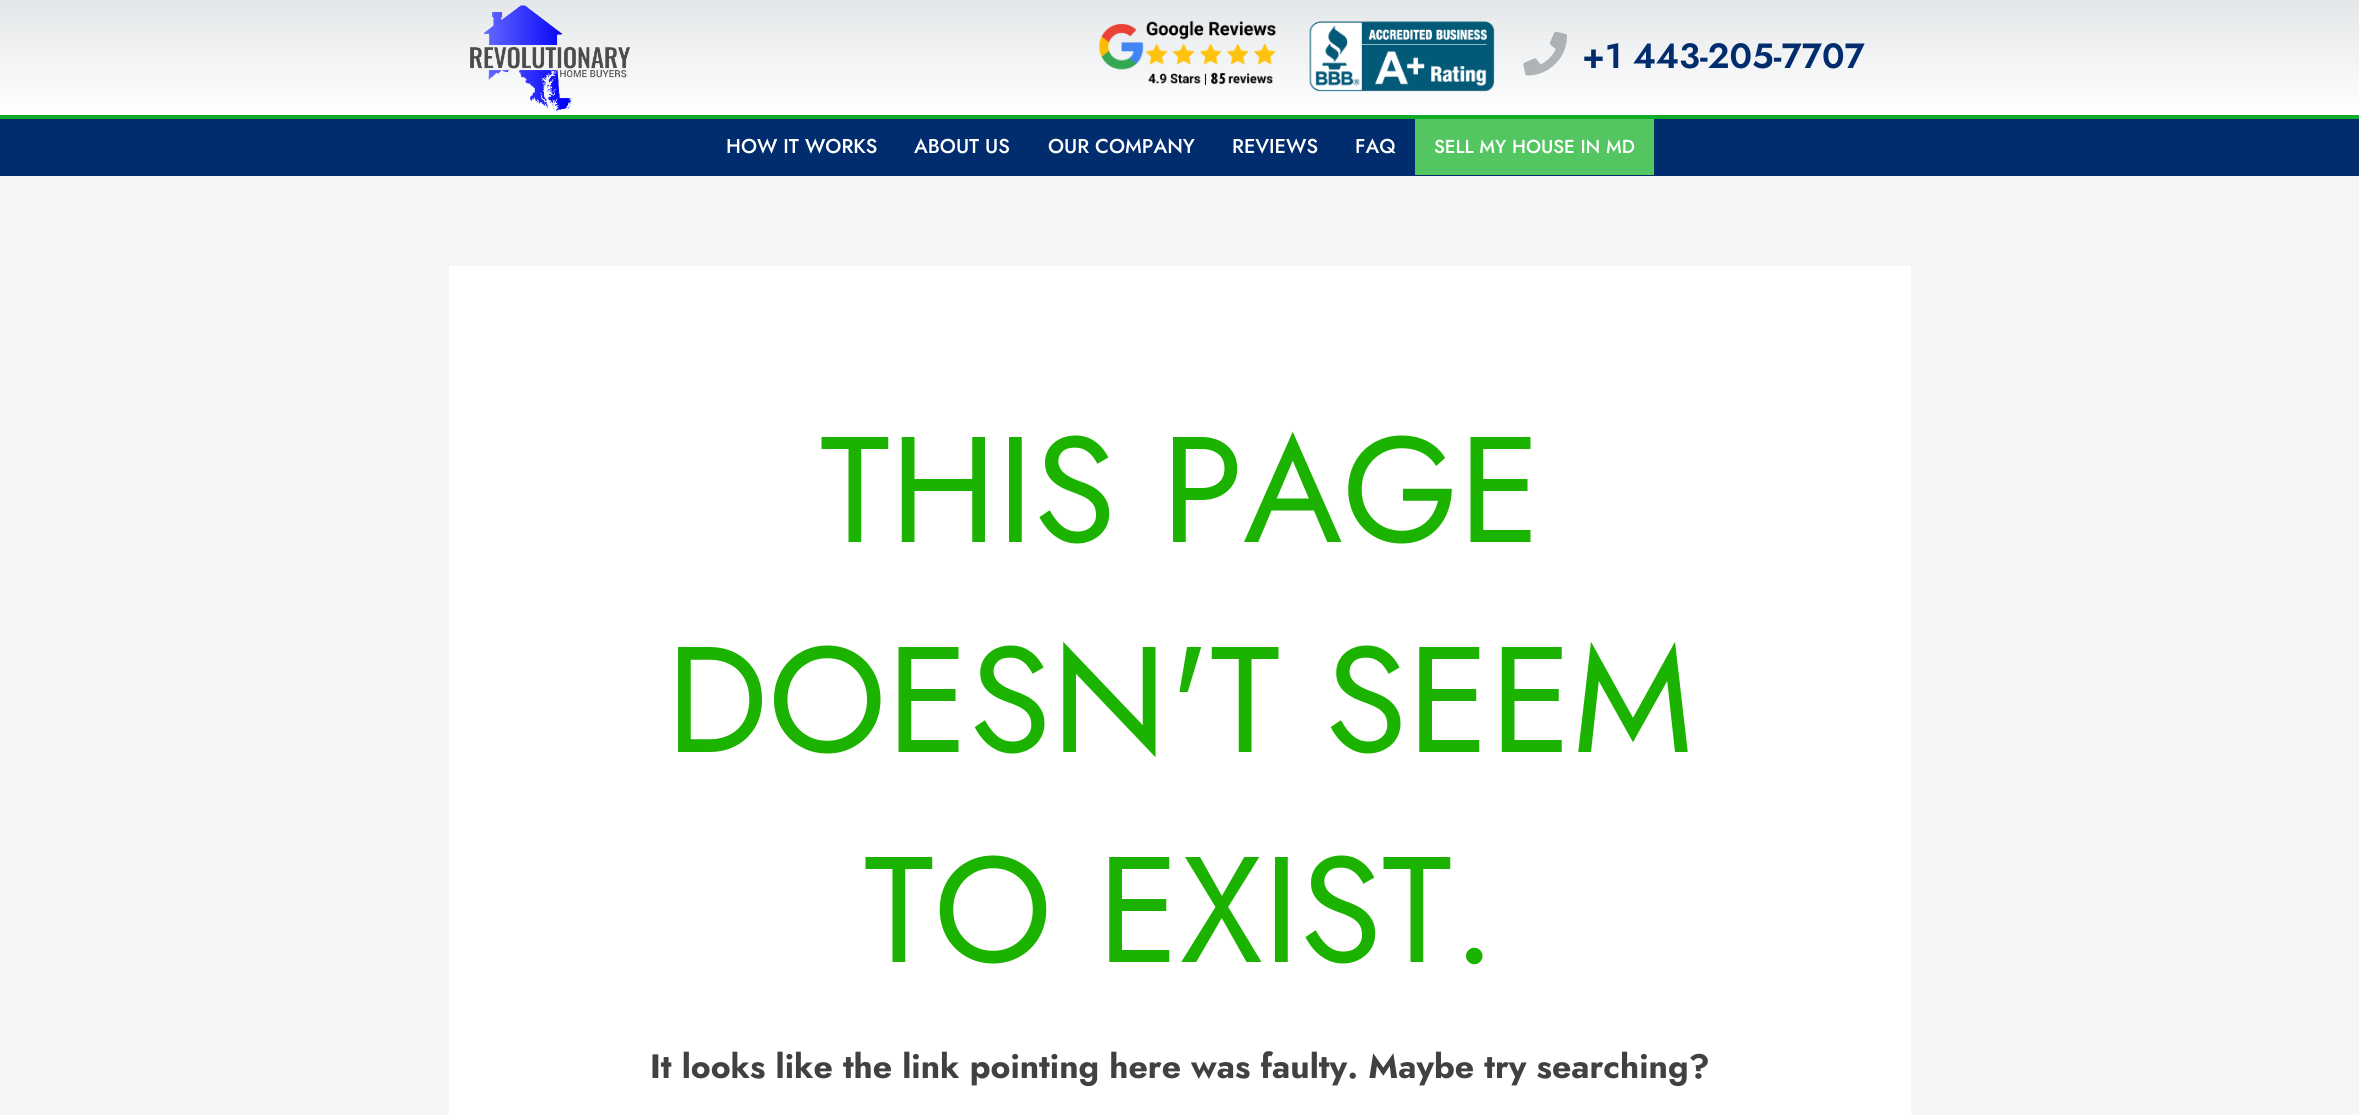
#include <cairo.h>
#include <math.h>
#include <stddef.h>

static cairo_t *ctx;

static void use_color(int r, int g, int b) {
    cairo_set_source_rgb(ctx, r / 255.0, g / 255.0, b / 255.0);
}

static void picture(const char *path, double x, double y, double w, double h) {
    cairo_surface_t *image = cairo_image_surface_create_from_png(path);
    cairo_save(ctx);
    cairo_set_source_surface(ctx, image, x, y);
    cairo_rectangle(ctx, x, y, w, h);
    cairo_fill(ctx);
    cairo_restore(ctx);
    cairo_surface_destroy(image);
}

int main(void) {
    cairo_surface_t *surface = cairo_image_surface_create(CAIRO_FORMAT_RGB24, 2359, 1115);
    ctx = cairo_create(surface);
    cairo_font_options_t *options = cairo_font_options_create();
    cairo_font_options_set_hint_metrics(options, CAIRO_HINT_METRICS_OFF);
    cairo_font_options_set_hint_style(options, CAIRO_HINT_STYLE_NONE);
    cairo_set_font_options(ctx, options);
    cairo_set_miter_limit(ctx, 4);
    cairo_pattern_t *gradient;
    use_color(245, 245, 245);
    cairo_paint(ctx);
    gradient = cairo_pattern_create_linear(1180, 0, 1180, 115);
    cairo_pattern_add_color_stop_rgba(gradient, 0, 0.894, 0.906, 0.914, 1);
    cairo_pattern_add_color_stop_rgba(gradient, 1, 1, 1, 1, 1);
    cairo_set_source(ctx, gradient);
    cairo_pattern_destroy(gradient);
    cairo_rectangle(ctx, 0, 0, 2359, 115);
    cairo_fill(ctx);
    picture("img1.png", 470, 5, 160, 106);
    picture("img2.png", 1098, 21, 178, 64);
    picture("img3.png", 1309, 21, 186, 71);
    picture("img4.png", 1523, 31, 44, 45);
    cairo_select_font_face(ctx, "Jost SemiBold", CAIRO_FONT_SLANT_NORMAL, CAIRO_FONT_WEIGHT_NORMAL);
    cairo_set_font_size(ctx, 35);
    use_color(1, 44, 109);
    cairo_move_to(ctx, 1582, 68);
    cairo_show_text(ctx, "+1 443-205-7707");
    cairo_rectangle(ctx, 0, 119, 2359, 57);
    cairo_fill(ctx);
    use_color(15, 170, 39);
    cairo_rectangle(ctx, 0, 115, 2359, 4);
    cairo_fill(ctx);
    cairo_select_font_face(ctx, "Jost Medium", CAIRO_FONT_SLANT_NORMAL, CAIRO_FONT_WEIGHT_NORMAL);
    cairo_set_font_size(ctx, 20);
    use_color(255, 255, 255);
    cairo_move_to(ctx, 726, 153);
    cairo_show_text(ctx, "HOW IT WORKS");
    cairo_move_to(ctx, 914, 153);
    cairo_show_text(ctx, "ABOUT US");
    cairo_move_to(ctx, 1048, 153);
    cairo_show_text(ctx, "OUR COMPANY");
    cairo_move_to(ctx, 1232, 153);
    cairo_show_text(ctx, "REVIEWS");
    cairo_move_to(ctx, 1355, 153);
    cairo_show_text(ctx, "FAQ");
    use_color(83, 198, 98);
    cairo_rectangle(ctx, 1415, 119, 239, 56);
    cairo_fill(ctx);
    cairo_set_font_size(ctx, 18.75);
    use_color(255, 255, 255);
    cairo_move_to(ctx, 1434, 153);
    cairo_show_text(ctx, "SELL MY HOUSE IN MD");
    cairo_rectangle(ctx, 449, 266, 1462, 849);
    cairo_fill(ctx);
    cairo_select_font_face(ctx, "Jost", CAIRO_FONT_SLANT_NORMAL, CAIRO_FONT_WEIGHT_NORMAL);
    cairo_set_font_size(ctx, 150);
    use_color(27, 179, 0);
    cairo_move_to(ctx, 820, 542);
    cairo_show_text(ctx, "THIS PAGE");
    cairo_move_to(ctx, 666, 752);
    cairo_show_text(ctx, "DOESN'T SEEM");
    cairo_move_to(ctx, 864, 962);
    cairo_show_text(ctx, "TO EXIST.");
    cairo_select_font_face(ctx, "Jost", CAIRO_FONT_SLANT_NORMAL, CAIRO_FONT_WEIGHT_BOLD);
    cairo_set_font_size(ctx, 33.75);
    use_color(65, 64, 66);
    cairo_move_to(ctx, 650, 1078);
    cairo_show_text(ctx, "It looks like the link pointing here was faulty. Maybe try searching?");
    cairo_surface_write_to_png(surface, "result.png");
    cairo_font_options_destroy(options);
    cairo_destroy(ctx);
    cairo_surface_destroy(surface);
    return 0;
}
